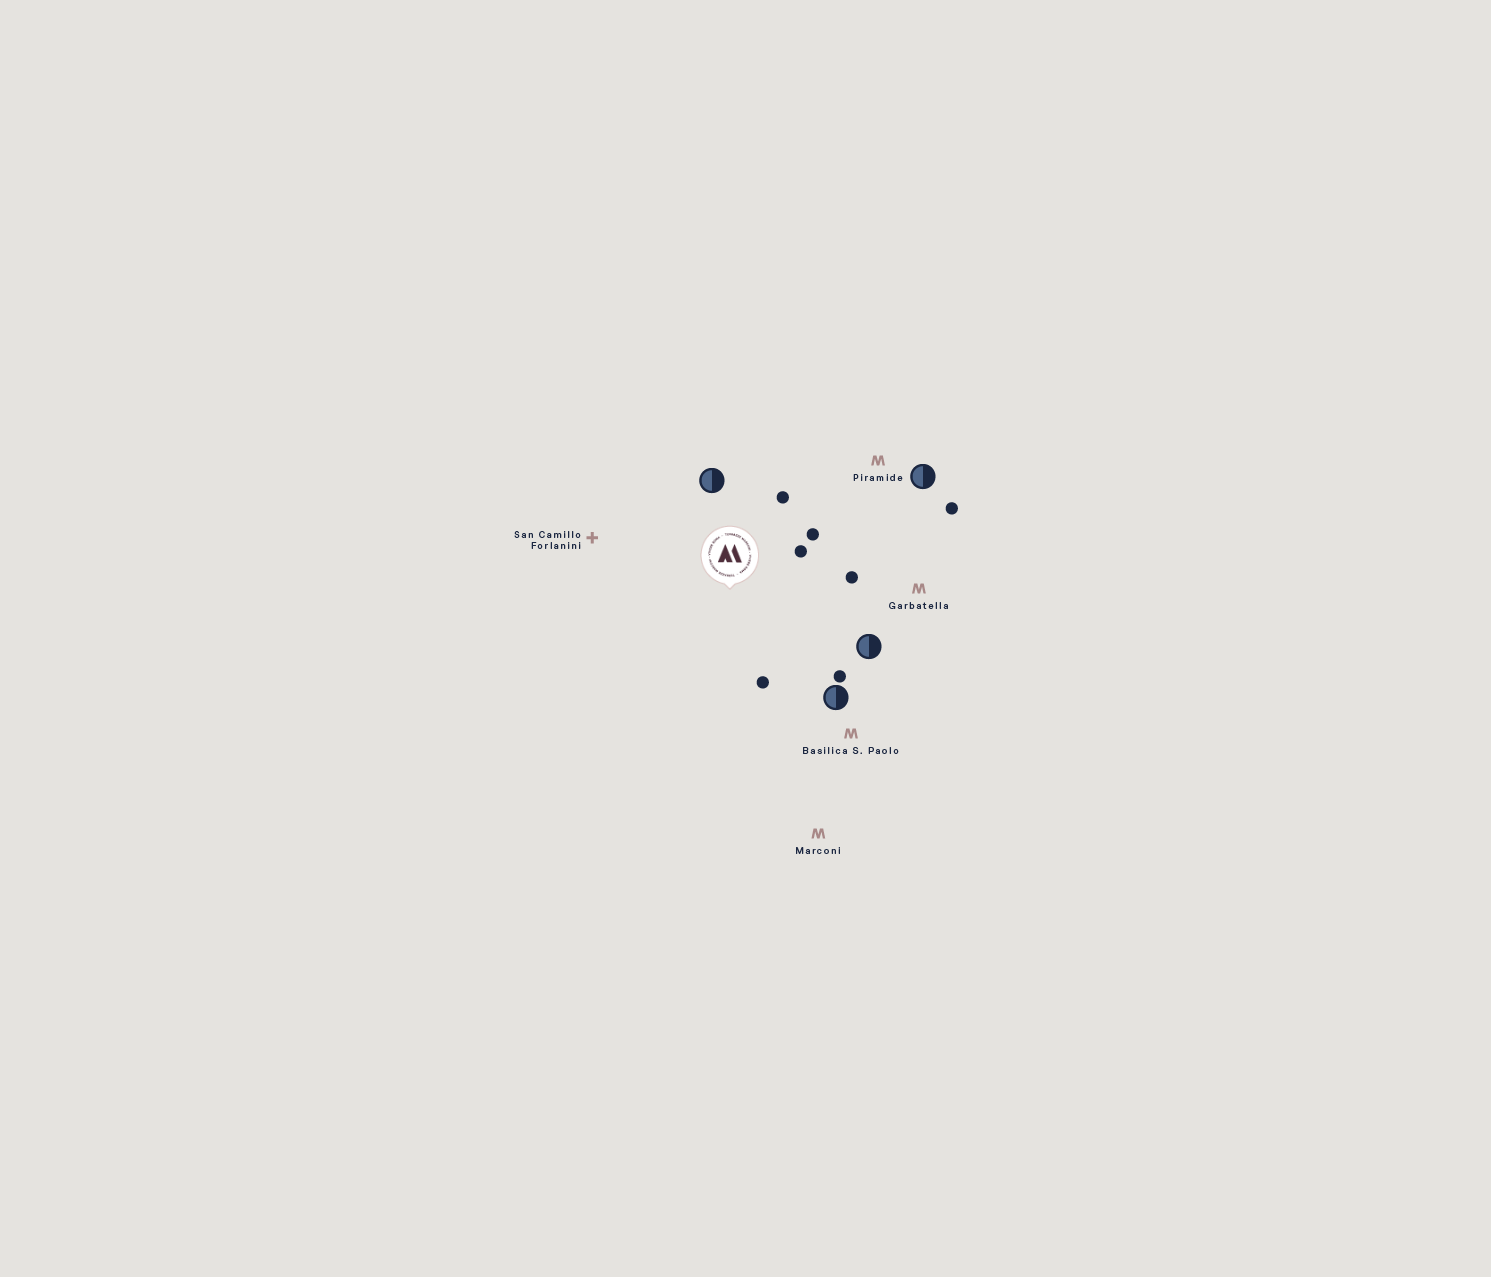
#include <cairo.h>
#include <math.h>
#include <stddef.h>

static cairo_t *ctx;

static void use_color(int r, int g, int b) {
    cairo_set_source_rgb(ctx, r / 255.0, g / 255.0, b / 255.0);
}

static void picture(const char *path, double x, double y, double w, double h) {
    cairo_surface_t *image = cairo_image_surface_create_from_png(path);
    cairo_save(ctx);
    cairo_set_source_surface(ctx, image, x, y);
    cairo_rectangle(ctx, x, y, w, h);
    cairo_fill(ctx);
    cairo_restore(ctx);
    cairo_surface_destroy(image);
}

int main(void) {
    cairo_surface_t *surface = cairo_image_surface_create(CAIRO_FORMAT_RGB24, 1491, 1277);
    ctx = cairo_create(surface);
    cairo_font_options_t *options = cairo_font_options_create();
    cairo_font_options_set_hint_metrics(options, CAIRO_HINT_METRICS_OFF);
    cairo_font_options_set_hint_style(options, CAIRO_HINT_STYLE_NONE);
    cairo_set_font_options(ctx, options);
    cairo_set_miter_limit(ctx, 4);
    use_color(229, 227, 223);
    cairo_paint(ctx);
    picture("img1.png", 699, 455, 181, 86);
    picture("img2.png", 880, 455, 78, 60);
    picture("img3.png", 514, 531, 84, 10);
    picture("img4.png", 531, 541, 63, 8);
    picture("img5.png", 700, 541, 180, 213);
    picture("img6.png", 880, 583, 68, 171);
    picture("img7.png", 796, 828, 44, 26);
    cairo_surface_write_to_png(surface, "result.png");
    cairo_font_options_destroy(options);
    cairo_destroy(ctx);
    cairo_surface_destroy(surface);
    return 0;
}
